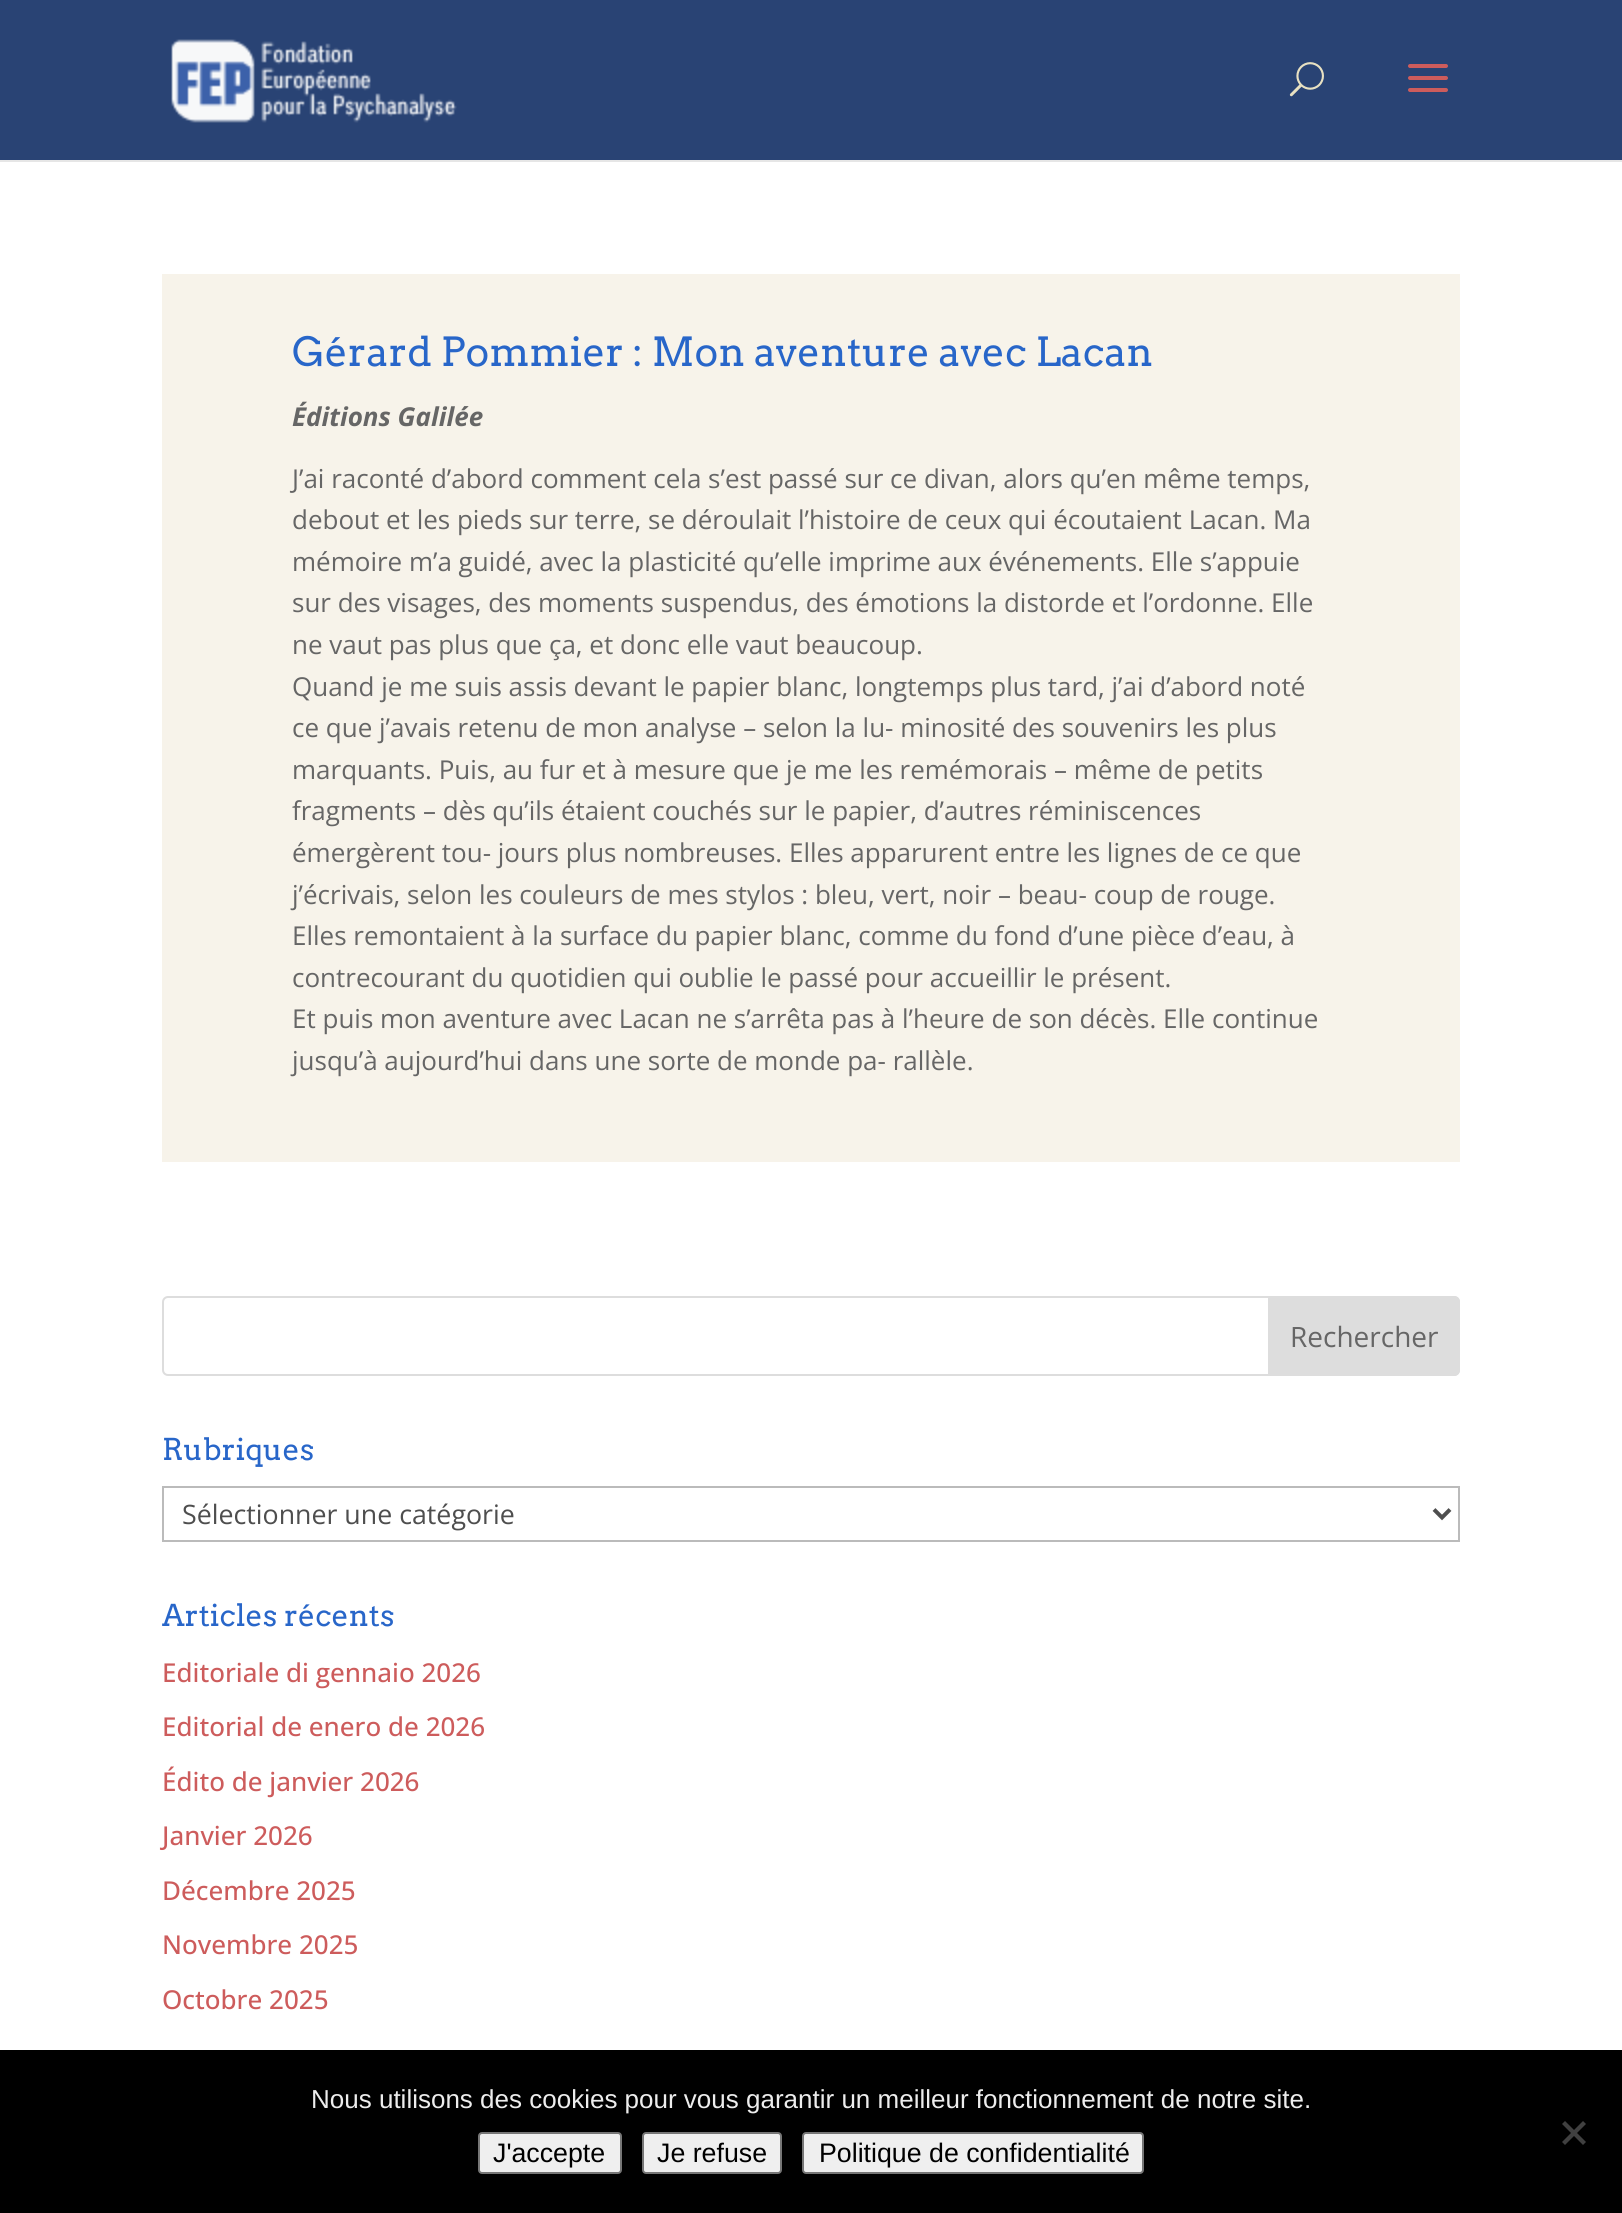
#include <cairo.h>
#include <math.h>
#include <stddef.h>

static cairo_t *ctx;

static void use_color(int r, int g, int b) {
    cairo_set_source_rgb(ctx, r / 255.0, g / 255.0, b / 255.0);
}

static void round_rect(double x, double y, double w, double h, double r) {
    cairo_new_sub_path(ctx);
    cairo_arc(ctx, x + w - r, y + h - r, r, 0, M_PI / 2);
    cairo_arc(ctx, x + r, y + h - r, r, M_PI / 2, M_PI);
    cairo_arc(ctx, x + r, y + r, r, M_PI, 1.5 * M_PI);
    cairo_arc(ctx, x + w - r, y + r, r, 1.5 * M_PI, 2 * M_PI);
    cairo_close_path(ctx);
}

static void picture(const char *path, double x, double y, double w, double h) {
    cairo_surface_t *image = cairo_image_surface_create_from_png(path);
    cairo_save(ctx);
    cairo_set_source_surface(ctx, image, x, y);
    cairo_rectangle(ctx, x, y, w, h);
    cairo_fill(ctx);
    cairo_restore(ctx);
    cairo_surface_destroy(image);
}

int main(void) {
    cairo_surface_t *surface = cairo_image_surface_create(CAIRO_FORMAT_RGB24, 1622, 2213);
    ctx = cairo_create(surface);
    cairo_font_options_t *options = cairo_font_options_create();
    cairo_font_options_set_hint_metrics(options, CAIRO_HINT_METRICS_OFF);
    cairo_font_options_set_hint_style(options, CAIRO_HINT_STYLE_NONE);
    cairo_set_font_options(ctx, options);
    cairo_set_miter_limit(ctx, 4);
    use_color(255, 255, 255);
    cairo_paint(ctx);
    use_color(230, 230, 230);
    cairo_rectangle(ctx, 0, 160, 1622, 2);
    cairo_fill(ctx);
    use_color(41, 67, 116);
    cairo_rectangle(ctx, 0, 0, 1622, 160);
    cairo_fill(ctx);
    picture("img1.png", 171, 39, 286, 84);
    picture("img2.png", 1289, 62, 35, 35);
    picture("img3.png", 1408, 64, 40, 28);
    use_color(247, 243, 234);
    cairo_rectangle(ctx, 162, 274, 1298, 888);
    cairo_fill(ctx);
    cairo_select_font_face(ctx, "Arvo", CAIRO_FONT_SLANT_NORMAL, CAIRO_FONT_WEIGHT_NORMAL);
    cairo_set_font_size(ctx, 40);
    use_color(40, 102, 201);
    cairo_move_to(ctx, 292, 366);
    cairo_show_text(ctx, "Gérard Pommier : Mon aventure avec Lacan");
    cairo_select_font_face(ctx, "Open Sans", CAIRO_FONT_SLANT_ITALIC, CAIRO_FONT_WEIGHT_BOLD);
    cairo_set_font_size(ctx, 26);
    use_color(102, 102, 102);
    cairo_move_to(ctx, 292, 426);
    cairo_show_text(ctx, "Éditions Galilée");
    cairo_select_font_face(ctx, "Open Sans", CAIRO_FONT_SLANT_NORMAL, CAIRO_FONT_WEIGHT_NORMAL);
    cairo_move_to(ctx, 292, 488);
    cairo_show_text(ctx, "J’ai raconté d’abord comment cela s’est passé sur ce divan, alors qu’en même temps,");
    cairo_move_to(ctx, 292, 529);
    cairo_show_text(ctx, "debout et les pieds sur terre, se déroulait l’histoire de ceux qui écoutaient Lacan. Ma");
    cairo_move_to(ctx, 292, 571);
    cairo_show_text(ctx, "mémoire m’a guidé, avec la plasticité qu’elle imprime aux événements. Elle s’appuie");
    cairo_move_to(ctx, 292, 612);
    cairo_show_text(ctx, "sur des visages, des moments suspendus, des émotions la distorde et l’ordonne. Elle");
    cairo_move_to(ctx, 292, 654);
    cairo_show_text(ctx, "ne vaut pas plus que ça, et donc elle vaut beaucoup.");
    cairo_move_to(ctx, 292, 696);
    cairo_show_text(ctx, "Quand je me suis assis devant le papier blanc, longtemps plus tard, j’ai d’abord noté");
    cairo_move_to(ctx, 292, 737);
    cairo_show_text(ctx, "ce que j’avais retenu de mon analyse – selon la lu- minosité des souvenirs les plus");
    cairo_move_to(ctx, 292, 779);
    cairo_show_text(ctx, "marquants. Puis, au fur et à mesure que je me les remémorais – même de petits");
    cairo_move_to(ctx, 292, 820);
    cairo_show_text(ctx, "fragments – dès qu’ils étaient couchés sur le papier, d’autres réminiscences");
    cairo_move_to(ctx, 292, 862);
    cairo_show_text(ctx, "émergèrent tou- jours plus nombreuses. Elles apparurent entre les lignes de ce que");
    cairo_move_to(ctx, 292, 904);
    cairo_show_text(ctx, "j’écrivais, selon les couleurs de mes stylos : bleu, vert, noir – beau- coup de rouge.");
    cairo_move_to(ctx, 292, 945);
    cairo_show_text(ctx, "Elles remontaient à la surface du papier blanc, comme du fond d’une pièce d’eau, à");
    cairo_move_to(ctx, 292, 987);
    cairo_show_text(ctx, "contrecourant du quotidien qui oublie le passé pour accueillir le présent.");
    cairo_move_to(ctx, 292, 1028);
    cairo_show_text(ctx, "Et puis mon aventure avec Lacan ne s’arrêta pas à l’heure de son décès. Elle continue");
    cairo_move_to(ctx, 292, 1070);
    cairo_show_text(ctx, "jusqu’à aujourd’hui dans une sorte de monde pa- rallèle.");
    round_rect(163, 1297, 1296, 78, 5);
    use_color(221, 221, 221);
    cairo_stroke(ctx);
    cairo_new_path(ctx);
    cairo_move_to(ctx, 1269, 1297);
    cairo_line_to(ctx, 1454, 1297);
    cairo_curve_to(ctx, 1457, 1297, 1459, 1299, 1459, 1302);
    cairo_line_to(ctx, 1459, 1370);
    cairo_curve_to(ctx, 1459, 1373, 1457, 1375, 1454, 1375);
    cairo_line_to(ctx, 1269, 1375);
    cairo_close_path(ctx);
    cairo_fill_preserve(ctx);
    cairo_stroke(ctx);
    cairo_set_font_size(ctx, 28);
    use_color(102, 102, 102);
    cairo_move_to(ctx, 1290, 1347);
    cairo_show_text(ctx, "Rechercher");
    cairo_select_font_face(ctx, "Arvo", CAIRO_FONT_SLANT_NORMAL, CAIRO_FONT_WEIGHT_NORMAL);
    cairo_set_font_size(ctx, 30);
    use_color(40, 102, 201);
    cairo_move_to(ctx, 162, 1460);
    cairo_show_text(ctx, "Rubriques");
    cairo_rectangle(ctx, 163, 1487, 1296, 54);
    use_color(187, 187, 187);
    cairo_stroke(ctx);
    cairo_new_path(ctx);
    cairo_move_to(ctx, 1434, 1509.5);
    cairo_line_to(ctx, 1442, 1517.5);
    cairo_line_to(ctx, 1450, 1509.5);
    use_color(78, 78, 78);
    cairo_set_line_width(ctx, 4);
    cairo_stroke(ctx);
    cairo_select_font_face(ctx, "Open Sans", CAIRO_FONT_SLANT_NORMAL, CAIRO_FONT_WEIGHT_NORMAL);
    cairo_set_font_size(ctx, 26.75);
    cairo_move_to(ctx, 182, 1524);
    cairo_show_text(ctx, "Sélectionner une catégorie");
    cairo_select_font_face(ctx, "Arvo", CAIRO_FONT_SLANT_NORMAL, CAIRO_FONT_WEIGHT_NORMAL);
    cairo_set_font_size(ctx, 30);
    use_color(40, 102, 201);
    cairo_move_to(ctx, 162, 1626);
    cairo_show_text(ctx, "Articles récents");
    cairo_select_font_face(ctx, "Open Sans Medium", CAIRO_FONT_SLANT_NORMAL, CAIRO_FONT_WEIGHT_NORMAL);
    cairo_set_font_size(ctx, 26);
    use_color(205, 92, 92);
    cairo_move_to(ctx, 162, 1682);
    cairo_show_text(ctx, "Editoriale di gennaio 2026");
    cairo_move_to(ctx, 162, 1736);
    cairo_show_text(ctx, "Editorial de enero de 2026");
    cairo_move_to(ctx, 162, 1791);
    cairo_show_text(ctx, "Édito de janvier 2026");
    cairo_move_to(ctx, 162, 1845);
    cairo_show_text(ctx, "Janvier 2026");
    cairo_move_to(ctx, 162, 1900);
    cairo_show_text(ctx, "Décembre 2025");
    cairo_move_to(ctx, 162, 1954);
    cairo_show_text(ctx, "Novembre 2025");
    cairo_move_to(ctx, 162, 2009);
    cairo_show_text(ctx, "Octobre 2025");
    use_color(0, 0, 0);
    cairo_rectangle(ctx, 0, 2050, 1622, 163);
    cairo_fill(ctx);
    cairo_select_font_face(ctx, "Liberation Sans", CAIRO_FONT_SLANT_NORMAL, CAIRO_FONT_WEIGHT_NORMAL);
    use_color(237, 237, 237);
    cairo_move_to(ctx, 311, 2108);
    cairo_show_text(ctx, "Nous utilisons des cookies pour vous garantir un meilleur fonctionnement de notre site.");
    use_color(64, 64, 64);
    cairo_new_path(ctx);
    cairo_move_to(ctx, 1583, 2121);
    cairo_line_to(ctx, 1586, 2124);
    cairo_line_to(ctx, 1565, 2145);
    cairo_line_to(ctx, 1562, 2142);
    cairo_close_path(ctx);
    cairo_fill(ctx);
    cairo_new_path(ctx);
    cairo_move_to(ctx, 1562, 2124);
    cairo_line_to(ctx, 1565, 2121);
    cairo_line_to(ctx, 1586, 2142);
    cairo_line_to(ctx, 1583, 2145);
    cairo_close_path(ctx);
    cairo_fill(ctx);
    use_color(239, 239, 239);
    round_rect(479, 2133, 142, 40, 3);
    cairo_fill_preserve(ctx);
    use_color(118, 118, 118);
    cairo_set_line_width(ctx, 2);
    cairo_stroke(ctx);
    cairo_set_font_size(ctx, 26.75);
    use_color(0, 0, 0);
    cairo_move_to(ctx, 493, 2162);
    cairo_show_text(ctx, "J'accepte");
    use_color(239, 239, 239);
    round_rect(643, 2133, 138, 40, 3);
    cairo_fill_preserve(ctx);
    use_color(118, 118, 118);
    cairo_stroke(ctx);
    use_color(0, 0, 0);
    cairo_move_to(ctx, 657, 2162);
    cairo_show_text(ctx, "Je refuse");
    use_color(239, 239, 239);
    round_rect(803, 2133, 340, 40, 3);
    cairo_fill_preserve(ctx);
    use_color(118, 118, 118);
    cairo_stroke(ctx);
    use_color(0, 0, 0);
    cairo_move_to(ctx, 819, 2162);
    cairo_show_text(ctx, "Politique de confidentialité");
    cairo_surface_write_to_png(surface, "result.png");
    cairo_font_options_destroy(options);
    cairo_destroy(ctx);
    cairo_surface_destroy(surface);
    return 0;
}
